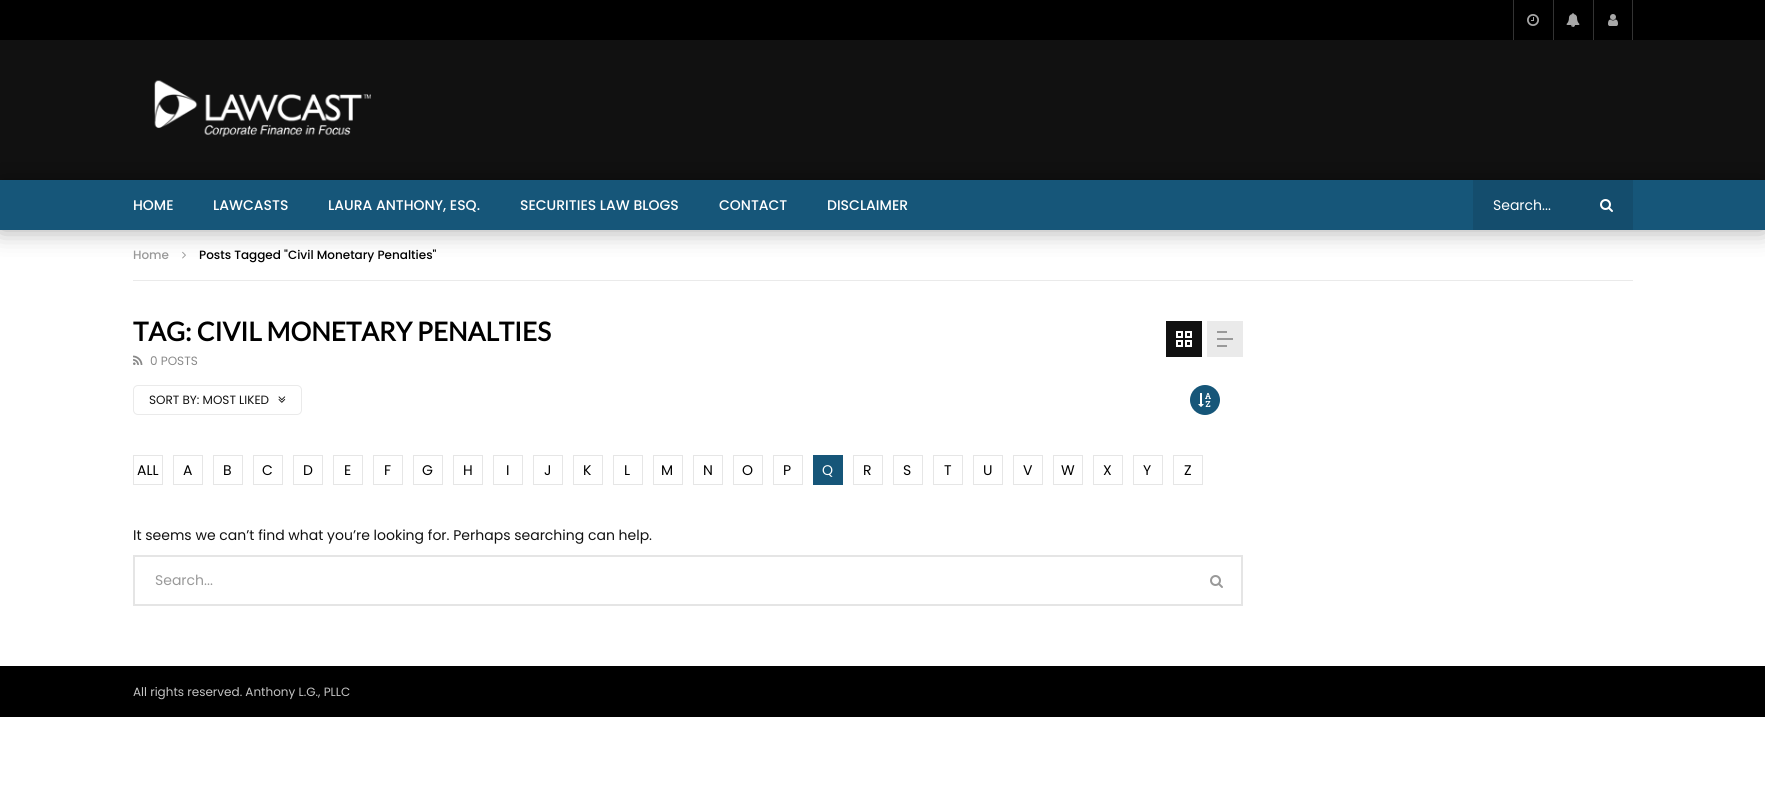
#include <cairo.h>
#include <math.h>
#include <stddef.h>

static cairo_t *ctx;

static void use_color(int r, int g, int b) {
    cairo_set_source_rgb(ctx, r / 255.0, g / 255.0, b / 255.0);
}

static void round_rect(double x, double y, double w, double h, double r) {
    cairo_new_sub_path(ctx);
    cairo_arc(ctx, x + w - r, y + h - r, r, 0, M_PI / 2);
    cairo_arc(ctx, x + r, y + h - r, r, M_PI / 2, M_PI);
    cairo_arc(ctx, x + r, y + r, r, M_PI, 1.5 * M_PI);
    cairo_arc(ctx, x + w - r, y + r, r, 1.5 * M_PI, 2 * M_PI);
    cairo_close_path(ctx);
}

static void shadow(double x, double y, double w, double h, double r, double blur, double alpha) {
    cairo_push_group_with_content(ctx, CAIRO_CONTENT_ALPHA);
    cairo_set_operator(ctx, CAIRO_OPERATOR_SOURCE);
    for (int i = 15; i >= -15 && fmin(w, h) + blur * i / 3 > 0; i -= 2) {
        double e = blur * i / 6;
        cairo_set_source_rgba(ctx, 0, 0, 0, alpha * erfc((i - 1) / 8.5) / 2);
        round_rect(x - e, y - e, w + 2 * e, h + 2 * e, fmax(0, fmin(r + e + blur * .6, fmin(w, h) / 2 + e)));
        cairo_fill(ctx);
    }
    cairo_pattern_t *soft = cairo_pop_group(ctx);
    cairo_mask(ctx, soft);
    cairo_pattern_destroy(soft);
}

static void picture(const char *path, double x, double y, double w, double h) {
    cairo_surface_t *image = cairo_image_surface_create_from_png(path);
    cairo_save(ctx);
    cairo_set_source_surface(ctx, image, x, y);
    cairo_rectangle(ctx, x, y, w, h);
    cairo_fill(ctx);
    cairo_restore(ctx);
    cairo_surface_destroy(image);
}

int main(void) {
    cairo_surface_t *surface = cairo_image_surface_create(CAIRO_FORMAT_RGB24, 1765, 790);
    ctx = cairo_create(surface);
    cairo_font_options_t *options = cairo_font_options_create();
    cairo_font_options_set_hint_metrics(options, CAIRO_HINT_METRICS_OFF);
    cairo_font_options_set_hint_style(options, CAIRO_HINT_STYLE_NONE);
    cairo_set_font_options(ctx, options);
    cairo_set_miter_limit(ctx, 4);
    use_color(255, 255, 255);
    cairo_paint(ctx);
    use_color(0, 0, 0);
    cairo_rectangle(ctx, 0, 0, 1765, 40);
    cairo_fill(ctx);
    use_color(51, 51, 51);
    cairo_rectangle(ctx, 1513, 0, 1, 40);
    cairo_fill(ctx);
    picture("img1.png", 1527, 14, 12, 12);
    cairo_rectangle(ctx, 1553, 0, 1, 40);
    cairo_fill(ctx);
    picture("img2.png", 1566, 13, 14, 14);
    cairo_rectangle(ctx, 1632, 0, 1, 40);
    cairo_fill(ctx);
    cairo_rectangle(ctx, 1593, 0, 1, 40);
    cairo_fill(ctx);
    picture("img3.png", 1608, 14, 10, 12);
    use_color(17, 17, 17);
    cairo_rectangle(ctx, 0, 40, 1765, 140);
    cairo_fill(ctx);
    picture("img4.png", 154, 80, 217, 57);
    picture("img6.png", 182, 251, 4, 8);
    use_color(0, 0, 0);
    shadow(0, 180, 1765, 50, 0, 12.5, 0.35);
    use_color(22, 86, 121);
    cairo_rectangle(ctx, 0, 180, 1765, 50);
    cairo_fill(ctx);
    cairo_select_font_face(ctx, "Poppins Medium", CAIRO_FONT_SLANT_NORMAL, CAIRO_FONT_WEIGHT_NORMAL);
    cairo_set_font_size(ctx, 14);
    use_color(255, 255, 255);
    cairo_move_to(ctx, 133, 210);
    cairo_show_text(ctx, "HOME");
    cairo_move_to(ctx, 213, 210);
    cairo_show_text(ctx, "LAWCASTS");
    cairo_move_to(ctx, 328, 210);
    cairo_show_text(ctx, "LAURA ANTHONY, ESQ.");
    cairo_move_to(ctx, 520, 210);
    cairo_show_text(ctx, "SECURITIES LAW BLOGS");
    cairo_move_to(ctx, 719, 210);
    cairo_show_text(ctx, "CONTACT");
    cairo_move_to(ctx, 827, 210);
    cairo_show_text(ctx, "DISCLAIMER");
    use_color(20, 77, 109);
    cairo_rectangle(ctx, 1473, 180, 160, 50);
    cairo_fill(ctx);
    cairo_select_font_face(ctx, "Poppins", CAIRO_FONT_SLANT_NORMAL, CAIRO_FONT_WEIGHT_NORMAL);
    use_color(255, 255, 255);
    cairo_move_to(ctx, 1493, 210);
    cairo_show_text(ctx, "Search...");
    picture("img5.png", 1600, 199, 13, 13);
    use_color(234, 234, 234);
    cairo_rectangle(ctx, 133, 280, 1500, 1);
    cairo_fill(ctx);
    cairo_select_font_face(ctx, "Poppins Medium", CAIRO_FONT_SLANT_NORMAL, CAIRO_FONT_WEIGHT_NORMAL);
    cairo_set_font_size(ctx, 12);
    use_color(153, 153, 153);
    cairo_move_to(ctx, 133, 259);
    cairo_show_text(ctx, "Home");
    use_color(0, 0, 0);
    cairo_move_to(ctx, 199, 259);
    cairo_show_text(ctx, "Posts Tagged \"Civil Monetary Penalties\"");
    cairo_select_font_face(ctx, "Lato", CAIRO_FONT_SLANT_NORMAL, CAIRO_FONT_WEIGHT_BOLD);
    cairo_set_font_size(ctx, 26);
    cairo_move_to(ctx, 133, 341);
    cairo_show_text(ctx, "TAG: CIVIL MONETARY PENALTIES");
    picture("img7.png", 133, 355, 10, 10);
    cairo_select_font_face(ctx, "Poppins", CAIRO_FONT_SLANT_NORMAL, CAIRO_FONT_WEIGHT_NORMAL);
    cairo_set_font_size(ctx, 12);
    use_color(136, 136, 136);
    cairo_move_to(ctx, 150, 365);
    cairo_show_text(ctx, "0 POSTS");
    round_rect(133.5, 385.5, 168, 29, 4.5);
    use_color(234, 234, 234);
    cairo_set_line_width(ctx, 1);
    cairo_stroke(ctx);
    use_color(17, 17, 17);
    cairo_move_to(ctx, 149, 404);
    cairo_show_text(ctx, "SORT BY: MOST LIKED");
    picture("img8.png", 278, 396, 8, 7);
    cairo_rectangle(ctx, 1166, 321, 36, 36);
    cairo_fill(ctx);
    cairo_rectangle(ctx, 1177, 332, 5, 5);
    use_color(255, 255, 255);
    cairo_set_line_width(ctx, 2);
    cairo_stroke(ctx);
    cairo_rectangle(ctx, 1186, 332, 5, 5);
    cairo_stroke(ctx);
    cairo_rectangle(ctx, 1177, 341, 5, 5);
    cairo_stroke(ctx);
    cairo_rectangle(ctx, 1186, 341, 5, 5);
    cairo_stroke(ctx);
    use_color(234, 234, 234);
    cairo_rectangle(ctx, 1207, 321, 36, 36);
    cairo_fill(ctx);
    use_color(153, 153, 153);
    cairo_rectangle(ctx, 1217, 331, 10, 2);
    cairo_fill(ctx);
    cairo_rectangle(ctx, 1217, 338, 16, 2);
    cairo_fill(ctx);
    cairo_rectangle(ctx, 1217, 345, 10, 2);
    cairo_fill(ctx);
    use_color(22, 86, 121);
    cairo_arc(ctx, 1205, 400, 15, 0, 2 * M_PI);
    cairo_fill(ctx);
    picture("img9.png", 1198, 393, 13, 14);
    cairo_rectangle(ctx, 133.5, 455.5, 29, 29);
    use_color(230, 230, 230);
    cairo_set_line_width(ctx, 1);
    cairo_stroke(ctx);
    cairo_set_font_size(ctx, 14);
    use_color(0, 0, 0);
    cairo_move_to(ctx, 137, 475);
    cairo_show_text(ctx, "ALL");
    cairo_rectangle(ctx, 173.5, 455.5, 29, 29);
    use_color(230, 230, 230);
    cairo_stroke(ctx);
    use_color(0, 0, 0);
    cairo_move_to(ctx, 183, 475);
    cairo_show_text(ctx, "A");
    cairo_rectangle(ctx, 213.5, 455.5, 29, 29);
    use_color(230, 230, 230);
    cairo_stroke(ctx);
    use_color(0, 0, 0);
    cairo_move_to(ctx, 223, 475);
    cairo_show_text(ctx, "B");
    cairo_rectangle(ctx, 253.5, 455.5, 29, 29);
    use_color(230, 230, 230);
    cairo_stroke(ctx);
    use_color(0, 0, 0);
    cairo_move_to(ctx, 262, 475);
    cairo_show_text(ctx, "C");
    cairo_rectangle(ctx, 293.5, 455.5, 29, 29);
    use_color(230, 230, 230);
    cairo_stroke(ctx);
    use_color(0, 0, 0);
    cairo_move_to(ctx, 303, 475);
    cairo_show_text(ctx, "D");
    cairo_rectangle(ctx, 333.5, 455.5, 29, 29);
    use_color(230, 230, 230);
    cairo_stroke(ctx);
    use_color(0, 0, 0);
    cairo_move_to(ctx, 344, 475);
    cairo_show_text(ctx, "E");
    cairo_rectangle(ctx, 373.5, 455.5, 29, 29);
    use_color(230, 230, 230);
    cairo_stroke(ctx);
    use_color(0, 0, 0);
    cairo_move_to(ctx, 384, 475);
    cairo_show_text(ctx, "F");
    cairo_rectangle(ctx, 413.5, 455.5, 29, 29);
    use_color(230, 230, 230);
    cairo_stroke(ctx);
    use_color(0, 0, 0);
    cairo_move_to(ctx, 422, 475);
    cairo_show_text(ctx, "G");
    cairo_rectangle(ctx, 453.5, 455.5, 29, 29);
    use_color(230, 230, 230);
    cairo_stroke(ctx);
    use_color(0, 0, 0);
    cairo_move_to(ctx, 463, 475);
    cairo_show_text(ctx, "H");
    cairo_rectangle(ctx, 493.5, 455.5, 29, 29);
    use_color(230, 230, 230);
    cairo_stroke(ctx);
    use_color(0, 0, 0);
    cairo_move_to(ctx, 506, 475);
    cairo_show_text(ctx, "I");
    cairo_rectangle(ctx, 533.5, 455.5, 29, 29);
    use_color(230, 230, 230);
    cairo_stroke(ctx);
    use_color(0, 0, 0);
    cairo_move_to(ctx, 544, 475);
    cairo_show_text(ctx, "J");
    cairo_rectangle(ctx, 573.5, 455.5, 29, 29);
    use_color(230, 230, 230);
    cairo_stroke(ctx);
    use_color(0, 0, 0);
    cairo_move_to(ctx, 583, 475);
    cairo_show_text(ctx, "K");
    cairo_rectangle(ctx, 613.5, 455.5, 29, 29);
    use_color(230, 230, 230);
    cairo_stroke(ctx);
    use_color(0, 0, 0);
    cairo_move_to(ctx, 624, 475);
    cairo_show_text(ctx, "L");
    cairo_rectangle(ctx, 653.5, 455.5, 29, 29);
    use_color(230, 230, 230);
    cairo_stroke(ctx);
    use_color(0, 0, 0);
    cairo_move_to(ctx, 661, 475);
    cairo_show_text(ctx, "M");
    cairo_rectangle(ctx, 693.5, 455.5, 29, 29);
    use_color(230, 230, 230);
    cairo_stroke(ctx);
    use_color(0, 0, 0);
    cairo_move_to(ctx, 703, 475);
    cairo_show_text(ctx, "N");
    cairo_rectangle(ctx, 733.5, 455.5, 29, 29);
    use_color(230, 230, 230);
    cairo_stroke(ctx);
    use_color(0, 0, 0);
    cairo_move_to(ctx, 742, 475);
    cairo_show_text(ctx, "O");
    cairo_rectangle(ctx, 773.5, 455.5, 29, 29);
    use_color(230, 230, 230);
    cairo_stroke(ctx);
    use_color(0, 0, 0);
    cairo_move_to(ctx, 783, 475);
    cairo_show_text(ctx, "P");
    use_color(22, 86, 121);
    cairo_rectangle(ctx, 813, 455, 30, 30);
    cairo_fill(ctx);
    use_color(255, 255, 255);
    cairo_move_to(ctx, 822, 475);
    cairo_show_text(ctx, "Q");
    cairo_rectangle(ctx, 853.5, 455.5, 29, 29);
    use_color(230, 230, 230);
    cairo_stroke(ctx);
    use_color(0, 0, 0);
    cairo_move_to(ctx, 863, 475);
    cairo_show_text(ctx, "R");
    cairo_rectangle(ctx, 893.5, 455.5, 29, 29);
    use_color(230, 230, 230);
    cairo_stroke(ctx);
    use_color(0, 0, 0);
    cairo_move_to(ctx, 903, 475);
    cairo_show_text(ctx, "S");
    cairo_rectangle(ctx, 933.5, 455.5, 29, 29);
    use_color(230, 230, 230);
    cairo_stroke(ctx);
    use_color(0, 0, 0);
    cairo_move_to(ctx, 944, 475);
    cairo_show_text(ctx, "T");
    cairo_rectangle(ctx, 973.5, 455.5, 29, 29);
    use_color(230, 230, 230);
    cairo_stroke(ctx);
    use_color(0, 0, 0);
    cairo_move_to(ctx, 983, 475);
    cairo_show_text(ctx, "U");
    cairo_rectangle(ctx, 1013.5, 455.5, 29, 29);
    use_color(230, 230, 230);
    cairo_stroke(ctx);
    use_color(0, 0, 0);
    cairo_move_to(ctx, 1023, 475);
    cairo_show_text(ctx, "V");
    cairo_rectangle(ctx, 1053.5, 455.5, 29, 29);
    use_color(230, 230, 230);
    cairo_stroke(ctx);
    use_color(0, 0, 0);
    cairo_move_to(ctx, 1061, 475);
    cairo_show_text(ctx, "W");
    cairo_rectangle(ctx, 1093.5, 455.5, 29, 29);
    use_color(230, 230, 230);
    cairo_stroke(ctx);
    use_color(0, 0, 0);
    cairo_move_to(ctx, 1103, 475);
    cairo_show_text(ctx, "X");
    cairo_rectangle(ctx, 1133.5, 455.5, 29, 29);
    use_color(230, 230, 230);
    cairo_stroke(ctx);
    use_color(0, 0, 0);
    cairo_move_to(ctx, 1143, 475);
    cairo_show_text(ctx, "Y");
    cairo_rectangle(ctx, 1173.5, 455.5, 29, 29);
    use_color(230, 230, 230);
    cairo_stroke(ctx);
    use_color(0, 0, 0);
    cairo_move_to(ctx, 1184, 475);
    cairo_show_text(ctx, "Z");
    use_color(17, 17, 17);
    cairo_move_to(ctx, 133, 540);
    cairo_show_text(ctx, "It seems we can’t find what you’re looking for. Perhaps searching can help.");
    cairo_rectangle(ctx, 134, 556, 1108, 49);
    use_color(229, 229, 229);
    cairo_set_line_width(ctx, 2);
    cairo_stroke(ctx);
    use_color(153, 153, 153);
    cairo_move_to(ctx, 155, 585);
    cairo_show_text(ctx, "Search...");
    picture("img10.png", 1210, 575, 13, 13);
    use_color(0, 0, 0);
    cairo_rectangle(ctx, 0, 666, 1765, 51);
    cairo_fill(ctx);
    cairo_set_font_size(ctx, 12);
    use_color(196, 196, 196);
    cairo_move_to(ctx, 133, 696);
    cairo_show_text(ctx, "All rights reserved. Anthony L.G., PLLC");
    cairo_surface_write_to_png(surface, "result.png");
    cairo_font_options_destroy(options);
    cairo_destroy(ctx);
    cairo_surface_destroy(surface);
    return 0;
}
